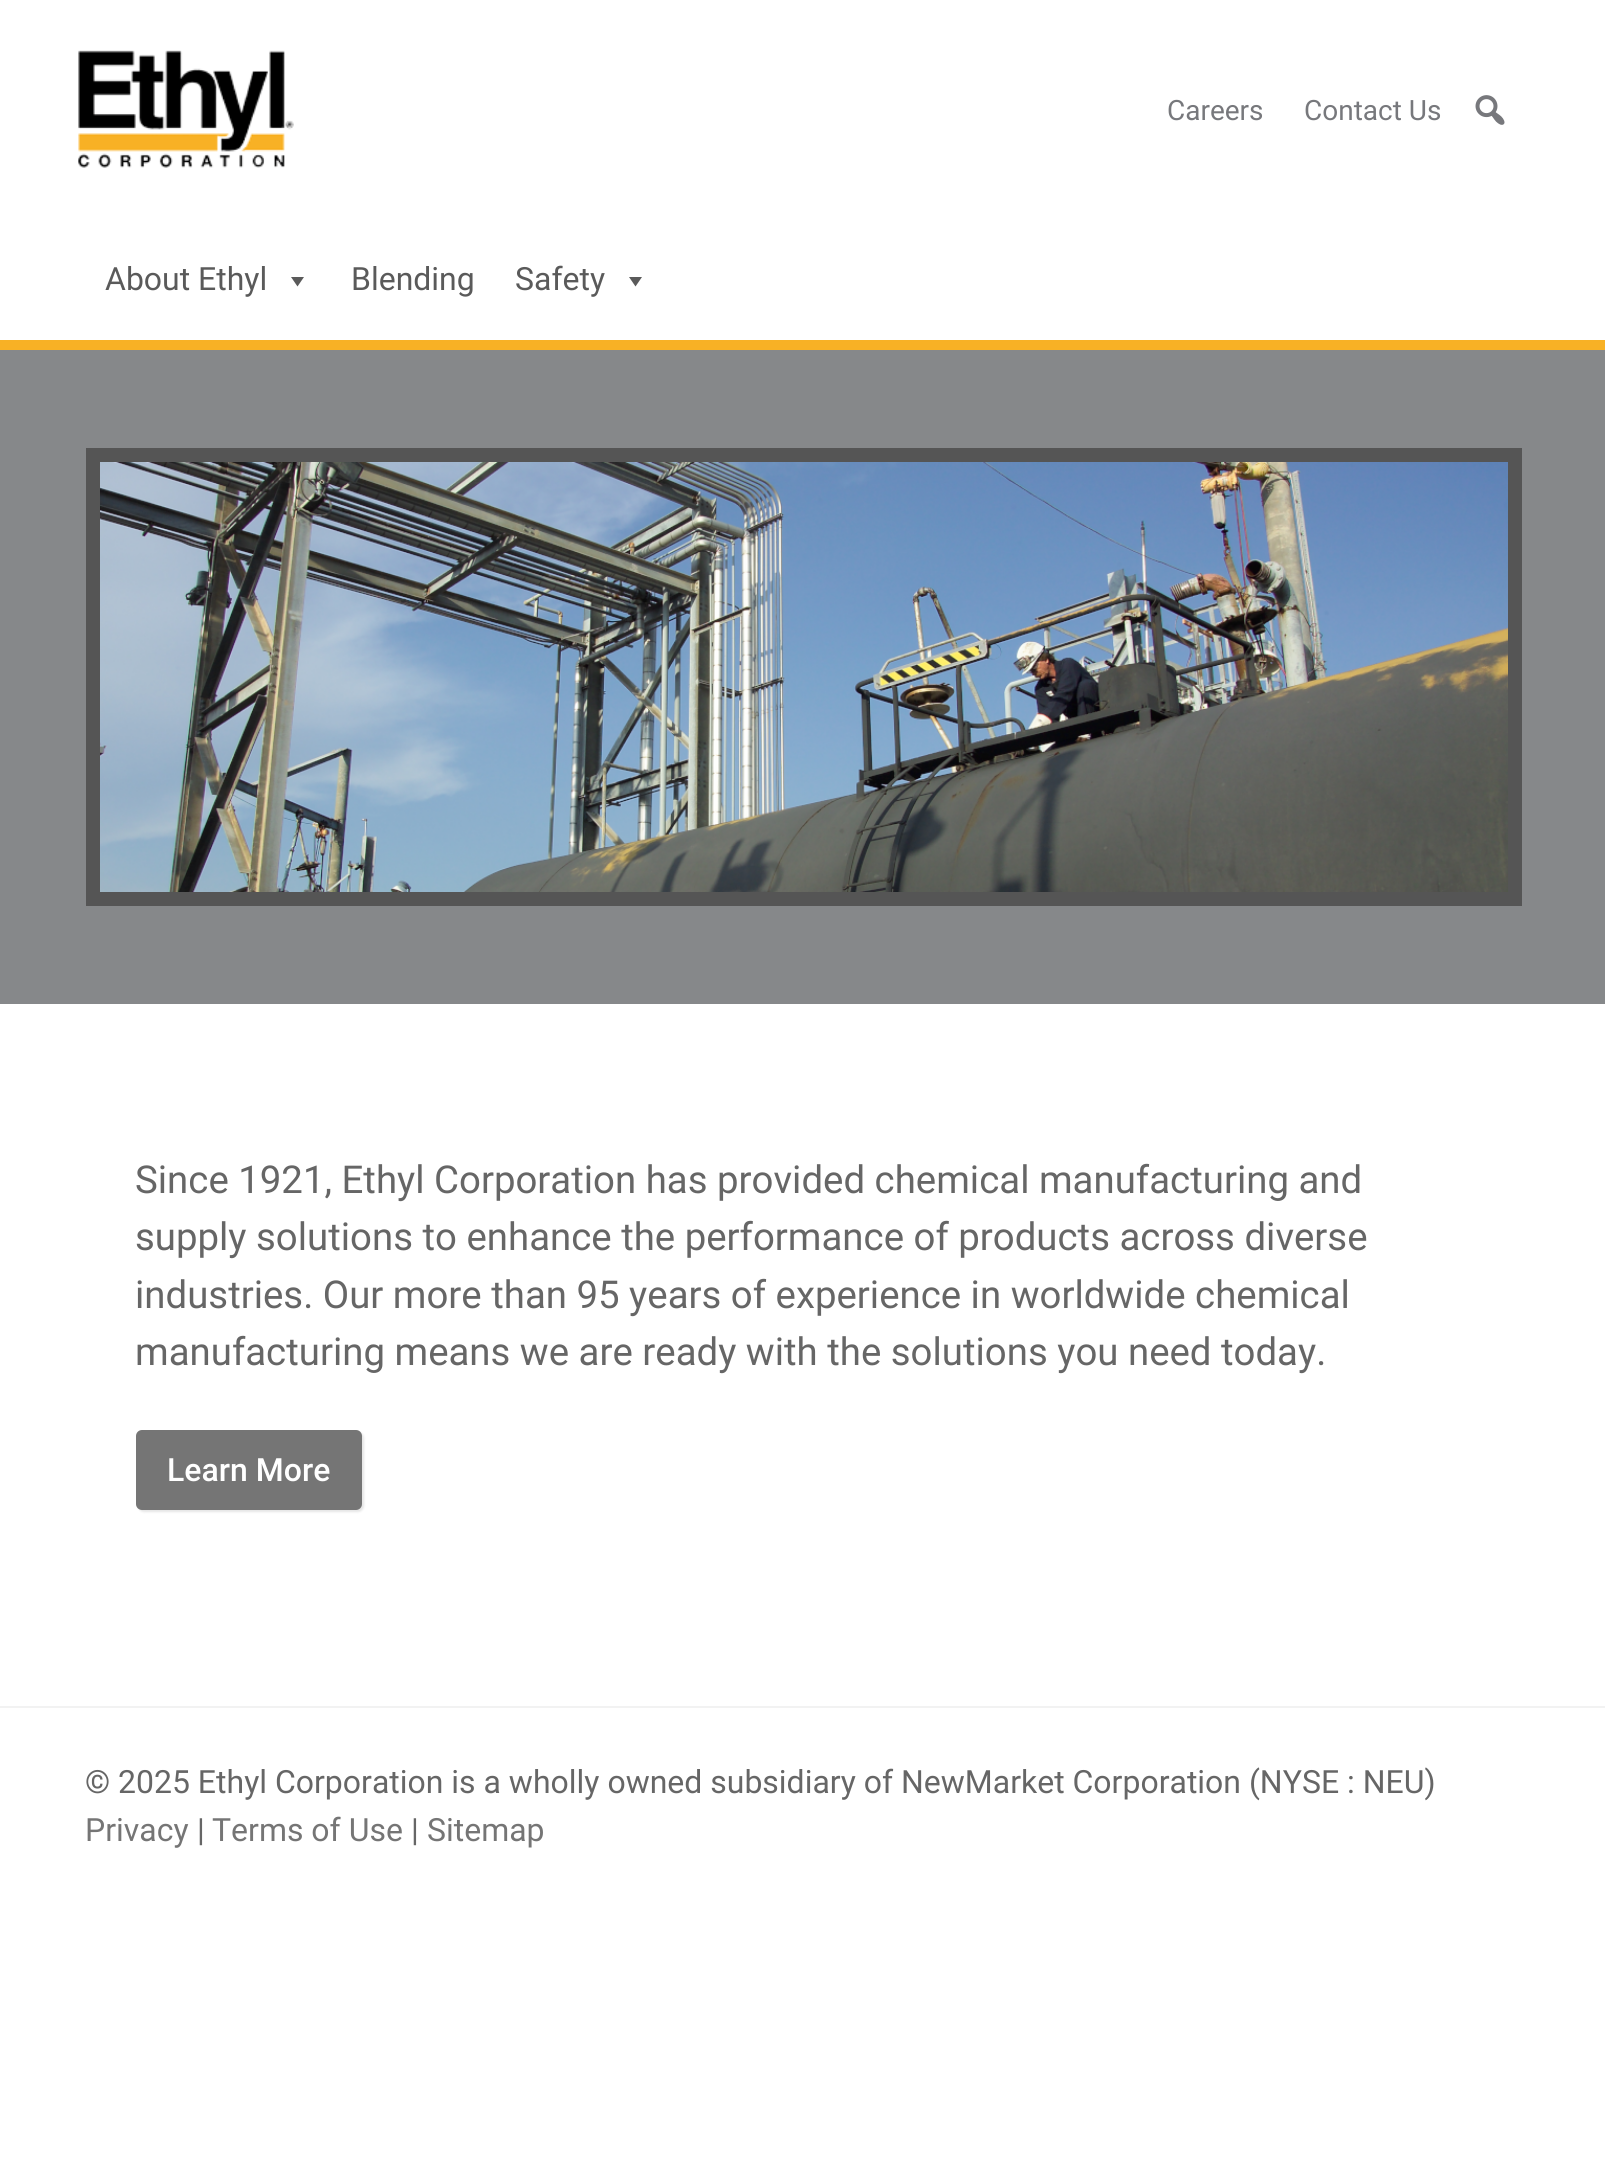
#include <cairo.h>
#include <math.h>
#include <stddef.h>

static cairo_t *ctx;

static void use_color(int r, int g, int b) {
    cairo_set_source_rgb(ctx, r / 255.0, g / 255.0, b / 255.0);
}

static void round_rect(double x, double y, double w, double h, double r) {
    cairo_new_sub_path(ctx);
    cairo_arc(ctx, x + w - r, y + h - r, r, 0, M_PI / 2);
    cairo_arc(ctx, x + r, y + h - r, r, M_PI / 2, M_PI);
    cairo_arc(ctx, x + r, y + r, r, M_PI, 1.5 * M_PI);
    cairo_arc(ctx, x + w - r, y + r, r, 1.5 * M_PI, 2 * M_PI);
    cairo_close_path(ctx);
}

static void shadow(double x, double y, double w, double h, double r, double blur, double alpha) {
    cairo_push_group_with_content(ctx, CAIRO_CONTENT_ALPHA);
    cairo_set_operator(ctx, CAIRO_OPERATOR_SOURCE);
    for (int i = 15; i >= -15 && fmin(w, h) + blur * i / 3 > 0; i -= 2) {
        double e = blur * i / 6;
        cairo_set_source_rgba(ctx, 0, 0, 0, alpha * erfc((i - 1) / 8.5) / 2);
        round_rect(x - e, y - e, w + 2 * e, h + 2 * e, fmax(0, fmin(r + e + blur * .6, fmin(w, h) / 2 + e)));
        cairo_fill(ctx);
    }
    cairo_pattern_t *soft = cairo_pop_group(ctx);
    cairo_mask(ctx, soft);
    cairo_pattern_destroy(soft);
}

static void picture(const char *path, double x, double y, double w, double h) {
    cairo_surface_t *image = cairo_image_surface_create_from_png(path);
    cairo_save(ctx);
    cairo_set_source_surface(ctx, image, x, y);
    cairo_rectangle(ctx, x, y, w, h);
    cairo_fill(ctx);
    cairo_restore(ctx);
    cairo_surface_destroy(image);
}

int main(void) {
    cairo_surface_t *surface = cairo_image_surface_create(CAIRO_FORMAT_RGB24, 1605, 2181);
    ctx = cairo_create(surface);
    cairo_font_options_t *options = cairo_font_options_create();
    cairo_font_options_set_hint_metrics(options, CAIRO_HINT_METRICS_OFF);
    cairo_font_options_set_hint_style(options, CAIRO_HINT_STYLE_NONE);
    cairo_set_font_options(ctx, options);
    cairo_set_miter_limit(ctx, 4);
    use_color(255, 255, 255);
    cairo_paint(ctx);
    picture("img1.png", 78, 50, 216, 118);
    cairo_select_font_face(ctx, "Roboto", CAIRO_FONT_SLANT_NORMAL, CAIRO_FONT_WEIGHT_NORMAL);
    cairo_set_font_size(ctx, 28);
    use_color(119, 120, 124);
    cairo_move_to(ctx, 1167, 120);
    cairo_show_text(ctx, "Careers");
    cairo_move_to(ctx, 1304, 120);
    cairo_show_text(ctx, "Contact Us");
    picture("img2.png", 1475, 95, 30, 30);
    use_color(248, 177, 37);
    cairo_rectangle(ctx, 0, 340, 1605, 10);
    cairo_fill(ctx);
    cairo_set_font_size(ctx, 32);
    use_color(90, 90, 90);
    cairo_move_to(ctx, 105, 290);
    cairo_show_text(ctx, "About Ethyl");
    cairo_new_path(ctx);
    cairo_move_to(ctx, 304, 277);
    cairo_line_to(ctx, 297.5, 286.5);
    cairo_line_to(ctx, 291, 277);
    cairo_close_path(ctx);
    cairo_fill(ctx);
    cairo_move_to(ctx, 351, 290);
    cairo_show_text(ctx, "Blending");
    cairo_move_to(ctx, 515, 290);
    cairo_show_text(ctx, "Safety");
    cairo_new_path(ctx);
    cairo_move_to(ctx, 642, 277);
    cairo_line_to(ctx, 635.5, 286.5);
    cairo_line_to(ctx, 629, 277);
    cairo_close_path(ctx);
    cairo_fill(ctx);
    use_color(134, 136, 138);
    cairo_rectangle(ctx, 0, 350, 1605, 654);
    cairo_fill(ctx);
    cairo_rectangle(ctx, 93, 455, 1422, 444);
    use_color(85, 85, 85);
    cairo_set_line_width(ctx, 14);
    cairo_stroke(ctx);
    picture("img3.png", 100, 462, 1408, 430);
    cairo_set_font_size(ctx, 38.4);
    use_color(102, 102, 102);
    cairo_move_to(ctx, 135, 1193);
    cairo_show_text(ctx, "Since 1921, Ethyl Corporation has provided chemical manufacturing and");
    cairo_move_to(ctx, 135, 1250);
    cairo_show_text(ctx, "supply solutions to enhance the performance of products across diverse");
    cairo_move_to(ctx, 135, 1308);
    cairo_show_text(ctx, "industries. Our more than 95 years of experience in worldwide chemical");
    cairo_move_to(ctx, 135, 1365);
    cairo_show_text(ctx, "manufacturing means we are ready with the solutions you need today.");
    use_color(0, 0, 0);
    shadow(138, 1432, 226, 80, 6, 1, 0.1);
    use_color(117, 117, 117);
    round_rect(136, 1430, 226, 80, 6);
    cairo_fill(ctx);
    cairo_select_font_face(ctx, "Roboto Medium", CAIRO_FONT_SLANT_NORMAL, CAIRO_FONT_WEIGHT_NORMAL);
    cairo_set_font_size(ctx, 32);
    use_color(255, 255, 255);
    cairo_move_to(ctx, 167, 1481);
    cairo_show_text(ctx, "Learn More");
    use_color(242, 242, 242);
    cairo_rectangle(ctx, 0, 1706, 1605, 2);
    cairo_fill(ctx);
    cairo_select_font_face(ctx, "Roboto", CAIRO_FONT_SLANT_NORMAL, CAIRO_FONT_WEIGHT_NORMAL);
    use_color(102, 102, 102);
    cairo_move_to(ctx, 85, 1793);
    cairo_show_text(ctx, "© 2025 Ethyl Corporation is a wholly owned subsidiary of NewMarket Corporation (NYSE : NEU)");
    use_color(117, 117, 117);
    cairo_move_to(ctx, 85, 1841);
    cairo_show_text(ctx, "Privacy");
    use_color(102, 102, 102);
    cairo_move_to(ctx, 197, 1841);
    cairo_show_text(ctx, "|");
    use_color(117, 117, 117);
    cairo_move_to(ctx, 212, 1841);
    cairo_show_text(ctx, "Terms of Use");
    use_color(102, 102, 102);
    cairo_move_to(ctx, 411, 1841);
    cairo_show_text(ctx, "|");
    use_color(117, 117, 117);
    cairo_move_to(ctx, 427, 1841);
    cairo_show_text(ctx, "Sitemap");
    cairo_surface_write_to_png(surface, "result.png");
    cairo_font_options_destroy(options);
    cairo_destroy(ctx);
    cairo_surface_destroy(surface);
    return 0;
}
